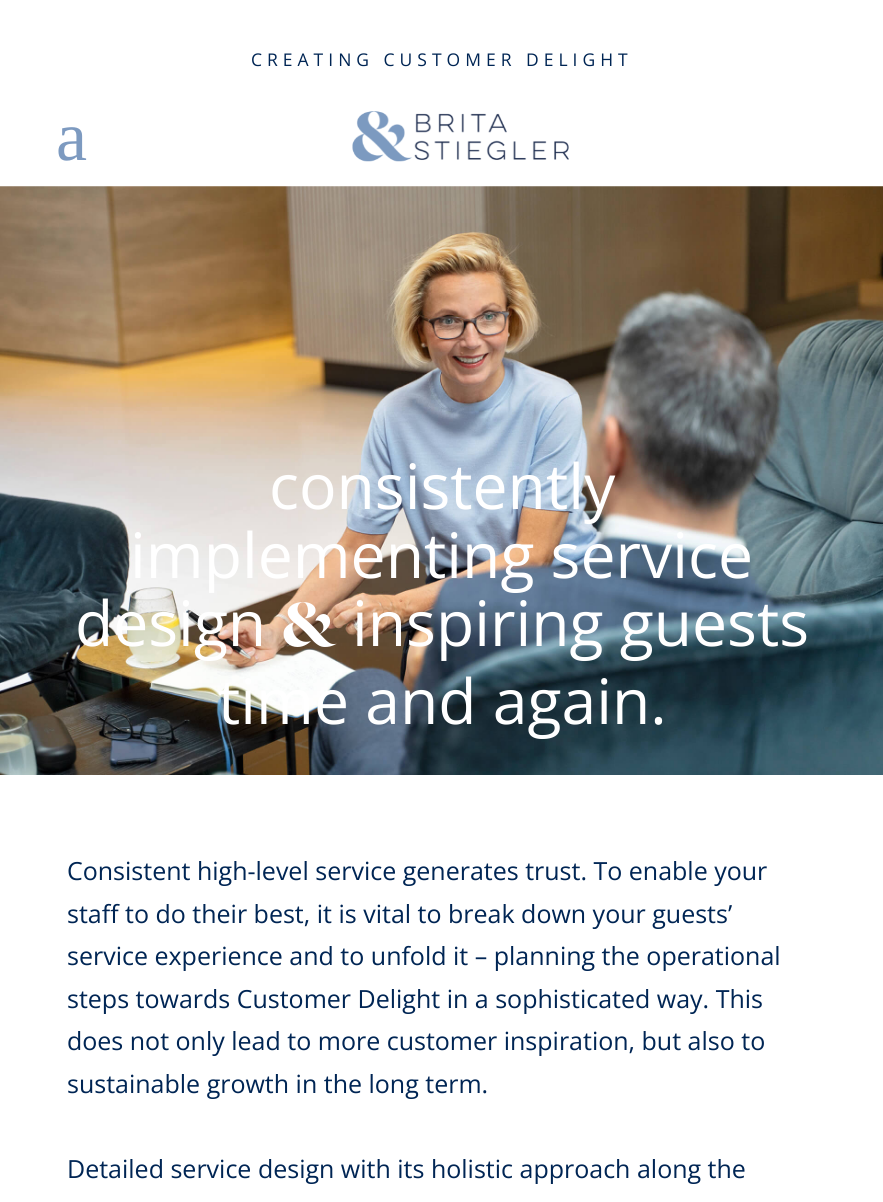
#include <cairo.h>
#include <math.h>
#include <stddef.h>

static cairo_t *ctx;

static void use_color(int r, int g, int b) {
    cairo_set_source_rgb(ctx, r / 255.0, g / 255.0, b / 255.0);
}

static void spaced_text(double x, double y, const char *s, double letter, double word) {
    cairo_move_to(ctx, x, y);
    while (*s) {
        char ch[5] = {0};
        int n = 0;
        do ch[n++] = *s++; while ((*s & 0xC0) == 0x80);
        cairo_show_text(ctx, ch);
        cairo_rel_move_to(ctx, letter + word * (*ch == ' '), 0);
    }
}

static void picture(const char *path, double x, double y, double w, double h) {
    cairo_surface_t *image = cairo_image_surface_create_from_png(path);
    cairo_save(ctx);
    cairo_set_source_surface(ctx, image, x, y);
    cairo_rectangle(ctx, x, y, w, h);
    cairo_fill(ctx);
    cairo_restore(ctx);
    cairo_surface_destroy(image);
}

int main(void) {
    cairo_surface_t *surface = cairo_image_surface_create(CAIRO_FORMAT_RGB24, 883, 1202);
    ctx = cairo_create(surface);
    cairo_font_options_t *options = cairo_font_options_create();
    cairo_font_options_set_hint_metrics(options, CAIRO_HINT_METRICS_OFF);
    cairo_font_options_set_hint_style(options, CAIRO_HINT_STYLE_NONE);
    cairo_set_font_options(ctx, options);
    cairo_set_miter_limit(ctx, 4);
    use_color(255, 255, 255);
    cairo_paint(ctx);
    cairo_select_font_face(ctx, "Open Sans", CAIRO_FONT_SLANT_NORMAL, CAIRO_FONT_WEIGHT_NORMAL);
    cairo_set_font_size(ctx, 17.5);
    use_color(0, 37, 84);
    spaced_text(251, 66, "CREATING CUSTOMER DELIGHT", 5, 0);
    cairo_select_font_face(ctx, "Liberation Serif", CAIRO_FONT_SLANT_NORMAL, CAIRO_FONT_WEIGHT_NORMAL);
    cairo_set_font_size(ctx, 70);
    use_color(125, 154, 192);
    cairo_move_to(ctx, 56, 160);
    cairo_show_text(ctx, "a");
    picture("img1.png", 352, 111, 217, 51);
    picture("img2.png", 0, 186, 883, 589);
    cairo_select_font_face(ctx, "Open Sans", CAIRO_FONT_SLANT_NORMAL, CAIRO_FONT_WEIGHT_NORMAL);
    cairo_set_font_size(ctx, 62.5);
    use_color(255, 255, 255);
    cairo_move_to(ctx, 269, 509);
    cairo_show_text(ctx, "consistently");
    cairo_move_to(ctx, 130, 578);
    cairo_show_text(ctx, "implementing service");
    cairo_move_to(ctx, 75, 646);
    cairo_show_text(ctx, "design");
    cairo_select_font_face(ctx, "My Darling", CAIRO_FONT_SLANT_NORMAL, CAIRO_FONT_WEIGHT_NORMAL);
    cairo_move_to(ctx, 282, 646);
    cairo_show_text(ctx, "&");
    cairo_select_font_face(ctx, "Open Sans", CAIRO_FONT_SLANT_NORMAL, CAIRO_FONT_WEIGHT_NORMAL);
    cairo_move_to(ctx, 352, 646);
    cairo_show_text(ctx, "inspiring guests");
    cairo_move_to(ctx, 218, 724);
    cairo_show_text(ctx, "time and again.");
    cairo_set_font_size(ctx, 25);
    use_color(0, 37, 84);
    cairo_move_to(ctx, 67, 880);
    cairo_show_text(ctx, "Consistent high-level service generates trust. To enable your");
    cairo_move_to(ctx, 67, 923);
    cairo_show_text(ctx, "staff to do their best, it is vital to break down your guests’");
    cairo_move_to(ctx, 67, 965);
    cairo_show_text(ctx, "service experience and to unfold it – planning the operational");
    cairo_move_to(ctx, 67, 1008);
    cairo_show_text(ctx, "steps towards Customer Delight in a sophisticated way. This");
    cairo_move_to(ctx, 67, 1050);
    cairo_show_text(ctx, "does not only lead to more customer inspiration, but also to");
    cairo_move_to(ctx, 67, 1093);
    cairo_show_text(ctx, "sustainable growth in the long term.");
    cairo_move_to(ctx, 67, 1178);
    cairo_show_text(ctx, "Detailed service design with its holistic approach along the");
    cairo_surface_write_to_png(surface, "result.png");
    cairo_font_options_destroy(options);
    cairo_destroy(ctx);
    cairo_surface_destroy(surface);
    return 0;
}
